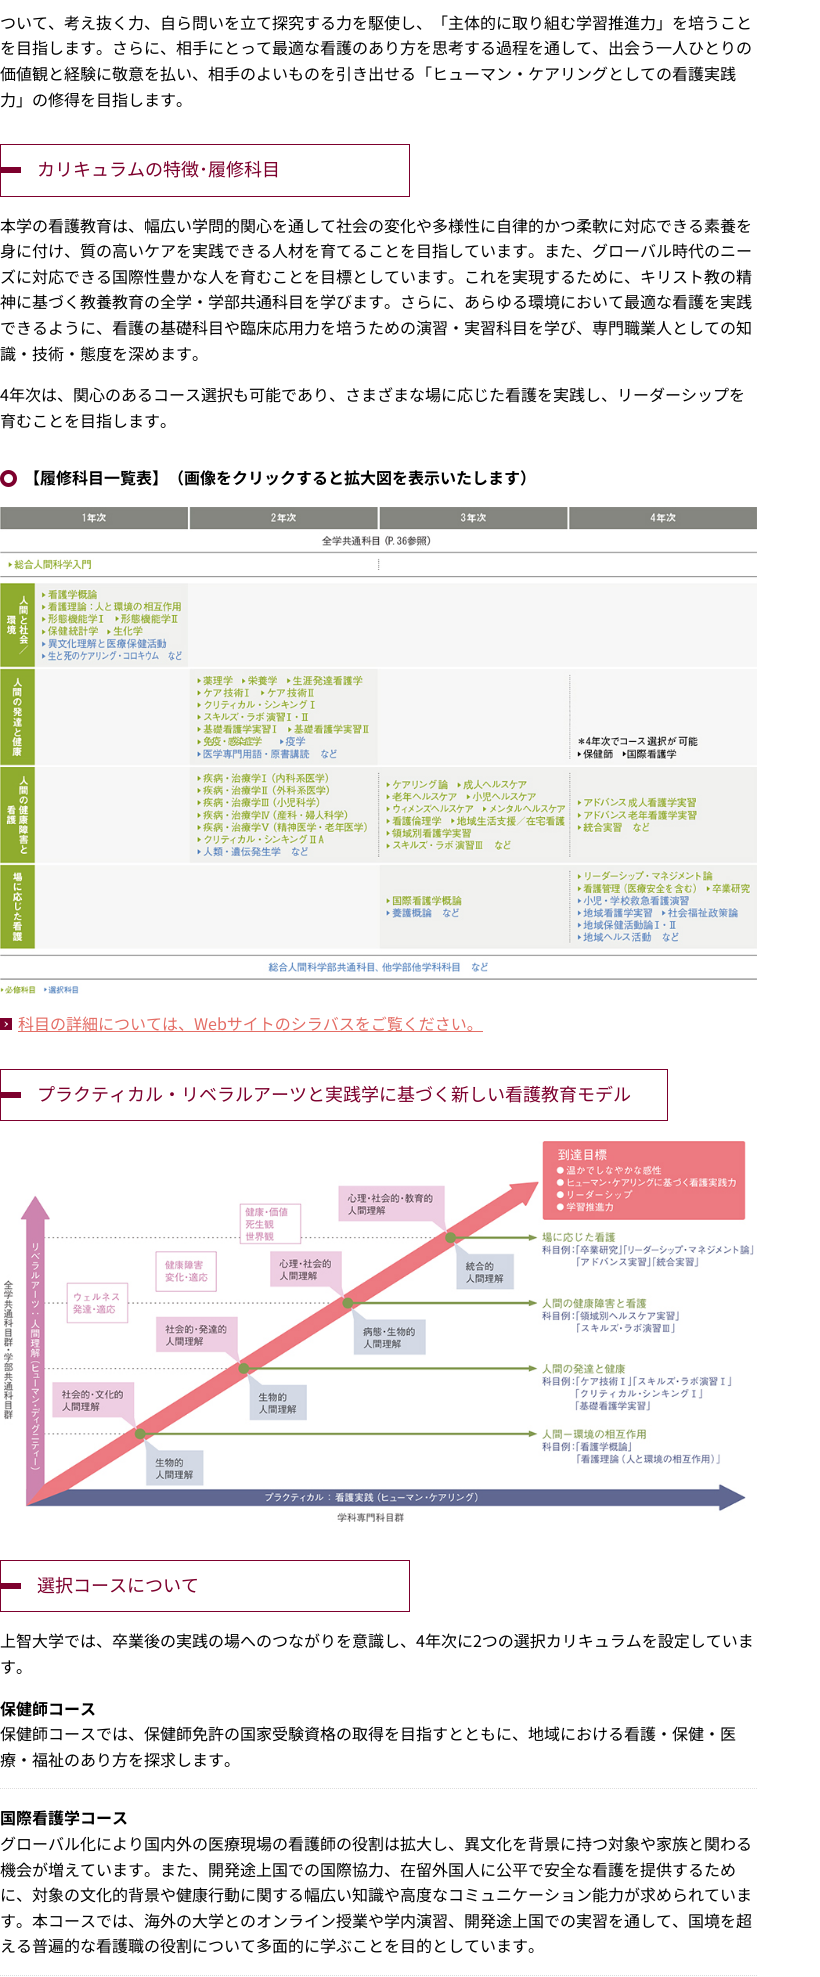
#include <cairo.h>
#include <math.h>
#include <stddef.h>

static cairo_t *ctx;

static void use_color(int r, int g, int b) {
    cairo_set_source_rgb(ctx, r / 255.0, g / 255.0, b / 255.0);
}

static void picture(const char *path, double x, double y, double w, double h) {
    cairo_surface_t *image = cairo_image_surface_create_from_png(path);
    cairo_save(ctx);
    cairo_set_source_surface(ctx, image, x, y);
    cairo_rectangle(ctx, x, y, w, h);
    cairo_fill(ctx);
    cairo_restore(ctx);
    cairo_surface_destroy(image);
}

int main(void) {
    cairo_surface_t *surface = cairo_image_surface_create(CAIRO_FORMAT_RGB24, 820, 1977);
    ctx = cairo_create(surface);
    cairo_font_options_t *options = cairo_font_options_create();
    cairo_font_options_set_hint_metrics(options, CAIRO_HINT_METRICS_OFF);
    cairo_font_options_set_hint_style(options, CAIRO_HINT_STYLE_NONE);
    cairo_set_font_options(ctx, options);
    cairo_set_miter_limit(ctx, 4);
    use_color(255, 255, 255);
    cairo_paint(ctx);
    cairo_select_font_face(ctx, "Noto Sans JP", CAIRO_FONT_SLANT_NORMAL, CAIRO_FONT_WEIGHT_NORMAL);
    cairo_set_font_size(ctx, 16);
    use_color(0, 0, 0);
    cairo_move_to(ctx, 0, 29);
    cairo_show_text(ctx, "ついて、考え抜く力、自ら問いを立て探究する力を駆使し、「主体的に取り組む学習推進力」を培うこと");
    cairo_move_to(ctx, 0, 54);
    cairo_show_text(ctx, "を目指します。さらに、相手にとって最適な看護のあり方を思考する過程を通して、出会う一人ひとりの");
    cairo_move_to(ctx, 0, 80);
    cairo_show_text(ctx, "価値観と経験に敬意を払い、相手のよいものを引き出せる「ヒューマン・ケアリングとしての看護実践");
    cairo_move_to(ctx, 0, 106);
    cairo_show_text(ctx, "力」の修得を目指します。");
    cairo_rectangle(ctx, 0.5, 144.5, 409, 52);
    use_color(125, 0, 45);
    cairo_set_line_width(ctx, 1);
    cairo_stroke(ctx);
    cairo_rectangle(ctx, 0, 167, 21, 6);
    cairo_fill(ctx);
    cairo_set_font_size(ctx, 18);
    cairo_move_to(ctx, 37, 176);
    cairo_show_text(ctx, "カリキュラムの特徴･履修科目");
    cairo_set_font_size(ctx, 16);
    use_color(0, 0, 0);
    cairo_move_to(ctx, 0, 232);
    cairo_show_text(ctx, "本学の看護教育は、幅広い学問的関心を通して社会の変化や多様性に自律的かつ柔軟に対応できる素養を");
    cairo_move_to(ctx, 0, 257);
    cairo_show_text(ctx, "身に付け、質の高いケアを実践できる人材を育てることを目指しています。また、グローバル時代のニー");
    cairo_move_to(ctx, 0, 283);
    cairo_show_text(ctx, "ズに対応できる国際性豊かな人を育むことを目標としています。これを実現するために、キリスト教の精");
    cairo_move_to(ctx, 0, 308);
    cairo_show_text(ctx, "神に基づく教養教育の全学・学部共通科目を学びます。さらに、あらゆる環境において最適な看護を実践");
    cairo_move_to(ctx, 0, 334);
    cairo_show_text(ctx, "できるように、看護の基礎科目や臨床応用力を培うための演習・実習科目を学び、専門職業人としての知");
    cairo_move_to(ctx, 0, 360);
    cairo_show_text(ctx, "識・技術・態度を深めます。");
    cairo_move_to(ctx, 0, 401);
    cairo_show_text(ctx, "4年次は、関心のあるコース選択も可能であり、さまざまな場に応じた看護を実践し、リーダーシップを");
    cairo_move_to(ctx, 0, 427);
    cairo_show_text(ctx, "育むことを目指します。");
    cairo_new_path(ctx);
    cairo_arc(ctx, 8.5, 478.5, 6.5, 0, 2 * M_PI);
    use_color(125, 0, 45);
    cairo_set_line_width(ctx, 4);
    cairo_stroke(ctx);
    cairo_select_font_face(ctx, "Noto Sans JP", CAIRO_FONT_SLANT_NORMAL, CAIRO_FONT_WEIGHT_BOLD);
    use_color(0, 0, 0);
    cairo_move_to(ctx, 24, 484);
    cairo_show_text(ctx, "【履修科目一覧表】（画像をクリックすると拡大図を表示いたします）");
    picture("img1.png", 0, 507, 757, 487);
    use_color(125, 0, 45);
    cairo_rectangle(ctx, 0, 1018, 12, 12);
    cairo_fill(ctx);
    use_color(228, 109, 101);
    cairo_rectangle(ctx, 18, 1031, 465, 1);
    cairo_fill(ctx);
    cairo_select_font_face(ctx, "Noto Sans JP", CAIRO_FONT_SLANT_NORMAL, CAIRO_FONT_WEIGHT_NORMAL);
    cairo_move_to(ctx, 18, 1030);
    cairo_show_text(ctx, "科目の詳細については、Webサイトのシラバスをご覧ください。");
    use_color(255, 255, 255);
    cairo_new_path(ctx);
    cairo_move_to(ctx, 5, 1021.5);
    cairo_line_to(ctx, 8, 1024);
    cairo_line_to(ctx, 7, 1025);
    cairo_line_to(ctx, 4.5, 1022);
    cairo_close_path(ctx);
    cairo_fill(ctx);
    cairo_new_path(ctx);
    cairo_move_to(ctx, 7, 1023.5);
    cairo_line_to(ctx, 8, 1024);
    cairo_line_to(ctx, 5, 1027);
    cairo_line_to(ctx, 4.5, 1026.5);
    cairo_close_path(ctx);
    cairo_fill(ctx);
    cairo_rectangle(ctx, 0.5, 1069.5, 667, 51);
    use_color(125, 0, 45);
    cairo_set_line_width(ctx, 1);
    cairo_stroke(ctx);
    cairo_rectangle(ctx, 0, 1092, 21, 6);
    cairo_fill(ctx);
    cairo_set_font_size(ctx, 18);
    cairo_move_to(ctx, 37, 1101);
    cairo_show_text(ctx, "プラクティカル・リベラルアーツと実践学に基づく新しい看護教育モデル");
    picture("img2.png", 4, 1141, 750, 381);
    cairo_rectangle(ctx, 0.5, 1560.5, 409, 51);
    cairo_stroke(ctx);
    cairo_rectangle(ctx, 0, 1583, 21, 6);
    cairo_fill(ctx);
    cairo_move_to(ctx, 37, 1592);
    cairo_show_text(ctx, "選択コースについて");
    cairo_set_font_size(ctx, 16);
    use_color(0, 0, 0);
    cairo_move_to(ctx, 0, 1647);
    cairo_show_text(ctx, "上智大学では、卒業後の実践の場へのつながりを意識し、4年次に2つの選択カリキュラムを設定していま");
    cairo_move_to(ctx, 0, 1673);
    cairo_show_text(ctx, "す。");
    cairo_select_font_face(ctx, "Noto Sans JP", CAIRO_FONT_SLANT_NORMAL, CAIRO_FONT_WEIGHT_BOLD);
    cairo_move_to(ctx, 0, 1715);
    cairo_show_text(ctx, "保健師コース");
    cairo_new_path(ctx);
    cairo_move_to(ctx, 0, 1788.5);
    cairo_line_to(ctx, 757, 1788.5);
    use_color(221, 221, 221);
    cairo_set_dash(ctx, (double[]){1, 1}, 2, 0);
    cairo_stroke(ctx);
    cairo_select_font_face(ctx, "Noto Sans JP", CAIRO_FONT_SLANT_NORMAL, CAIRO_FONT_WEIGHT_NORMAL);
    use_color(0, 0, 0);
    cairo_move_to(ctx, 0, 1740);
    cairo_show_text(ctx, "保健師コースでは、保健師免許の国家受験資格の取得を目指すとともに、地域における看護・保健・医");
    cairo_move_to(ctx, 0, 1766);
    cairo_show_text(ctx, "療・福祉のあり方を探求します。");
    cairo_select_font_face(ctx, "Noto Sans JP", CAIRO_FONT_SLANT_NORMAL, CAIRO_FONT_WEIGHT_BOLD);
    cairo_move_to(ctx, 0, 1824);
    cairo_show_text(ctx, "国際看護学コース");
    cairo_new_path(ctx);
    cairo_move_to(ctx, 0, 1975.5);
    cairo_line_to(ctx, 757, 1975.5);
    use_color(221, 221, 221);
    cairo_stroke(ctx);
    cairo_select_font_face(ctx, "Noto Sans JP", CAIRO_FONT_SLANT_NORMAL, CAIRO_FONT_WEIGHT_NORMAL);
    use_color(0, 0, 0);
    cairo_move_to(ctx, 0, 1850);
    cairo_show_text(ctx, "グローバル化により国内外の医療現場の看護師の役割は拡大し、異文化を背景に持つ対象や家族と関わる");
    cairo_move_to(ctx, 0, 1876);
    cairo_show_text(ctx, "機会が増えています。また、開発途上国での国際協力、在留外国人に公平で安全な看護を提供するため");
    cairo_move_to(ctx, 0, 1901);
    cairo_show_text(ctx, "に、対象の文化的背景や健康行動に関する幅広い知識や高度なコミュニケーション能力が求められていま");
    cairo_move_to(ctx, 0, 1927);
    cairo_show_text(ctx, "す。本コースでは、海外の大学とのオンライン授業や学内演習、開発途上国での実習を通して、国境を超");
    cairo_move_to(ctx, 0, 1952);
    cairo_show_text(ctx, "える普遍的な看護職の役割について多面的に学ぶことを目的としています。");
    cairo_surface_write_to_png(surface, "result.png");
    cairo_font_options_destroy(options);
    cairo_destroy(ctx);
    cairo_surface_destroy(surface);
    return 0;
}
